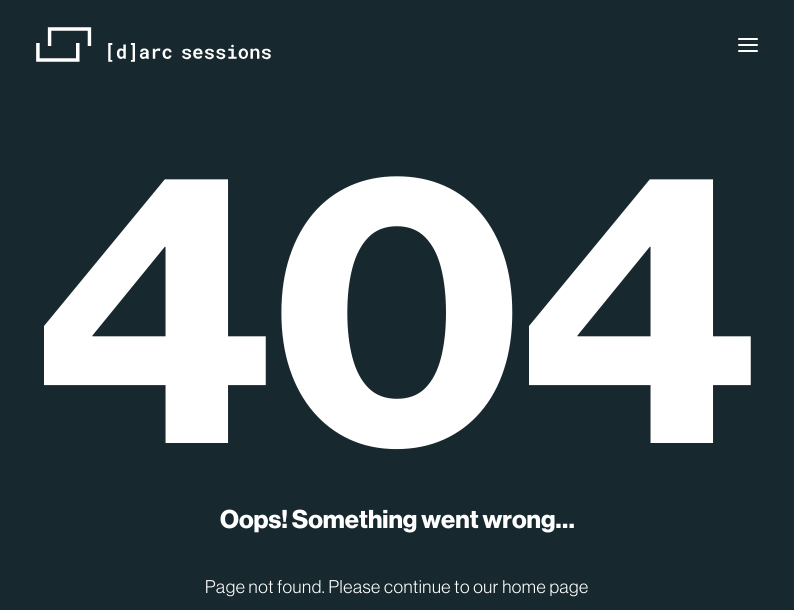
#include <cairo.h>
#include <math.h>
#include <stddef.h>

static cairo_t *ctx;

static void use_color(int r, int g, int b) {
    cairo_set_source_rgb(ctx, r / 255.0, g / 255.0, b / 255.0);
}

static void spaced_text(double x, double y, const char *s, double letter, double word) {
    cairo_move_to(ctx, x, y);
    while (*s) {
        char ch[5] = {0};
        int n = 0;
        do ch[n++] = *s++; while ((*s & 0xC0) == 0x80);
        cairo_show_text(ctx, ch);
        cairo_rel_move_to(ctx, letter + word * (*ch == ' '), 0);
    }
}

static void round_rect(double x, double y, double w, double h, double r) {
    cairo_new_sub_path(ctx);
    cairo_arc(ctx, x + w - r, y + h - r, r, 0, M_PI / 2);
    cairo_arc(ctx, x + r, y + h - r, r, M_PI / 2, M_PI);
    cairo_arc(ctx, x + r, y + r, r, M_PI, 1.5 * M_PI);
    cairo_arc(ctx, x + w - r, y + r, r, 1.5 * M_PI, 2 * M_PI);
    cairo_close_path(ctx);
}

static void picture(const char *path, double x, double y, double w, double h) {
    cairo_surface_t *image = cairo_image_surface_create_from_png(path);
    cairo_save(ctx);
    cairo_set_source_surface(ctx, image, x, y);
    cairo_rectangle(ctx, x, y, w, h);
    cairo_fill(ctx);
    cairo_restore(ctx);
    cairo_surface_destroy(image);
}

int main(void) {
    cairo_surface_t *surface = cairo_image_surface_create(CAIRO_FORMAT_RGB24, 794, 610);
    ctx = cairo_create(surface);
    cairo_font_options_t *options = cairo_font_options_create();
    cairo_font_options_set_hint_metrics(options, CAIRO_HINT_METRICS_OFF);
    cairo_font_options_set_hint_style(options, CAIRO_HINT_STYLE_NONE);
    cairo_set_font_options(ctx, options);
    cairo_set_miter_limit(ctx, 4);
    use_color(23, 41, 46);
    cairo_paint(ctx);
    picture("img1.png", 36, 27, 235, 35);
    use_color(255, 255, 255);
    round_rect(738, 44, 20, 2, 1);
    cairo_fill(ctx);
    round_rect(738, 38, 20, 2, 1);
    cairo_fill(ctx);
    round_rect(738, 50, 20, 2, 1);
    cairo_fill(ctx);
    cairo_select_font_face(ctx, "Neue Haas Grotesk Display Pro", CAIRO_FONT_SLANT_NORMAL, CAIRO_FONT_WEIGHT_BOLD);
    cairo_set_font_size(ctx, 381);
    cairo_move_to(ctx, 36, 443);
    cairo_show_text(ctx, "404");
    cairo_set_font_size(ctx, 25.3);
    cairo_move_to(ctx, 220, 528);
    cairo_show_text(ctx, "Oops! Something went wrong…");
    cairo_select_font_face(ctx, "Neue Haas Grotesk Display Pro", CAIRO_FONT_SLANT_NORMAL, CAIRO_FONT_WEIGHT_NORMAL);
    cairo_set_font_size(ctx, 18);
    spaced_text(205, 593, "Page not found. Please continue to our home page", 0.55, 0);
    cairo_surface_write_to_png(surface, "result.png");
    cairo_font_options_destroy(options);
    cairo_destroy(ctx);
    cairo_surface_destroy(surface);
    return 0;
}
